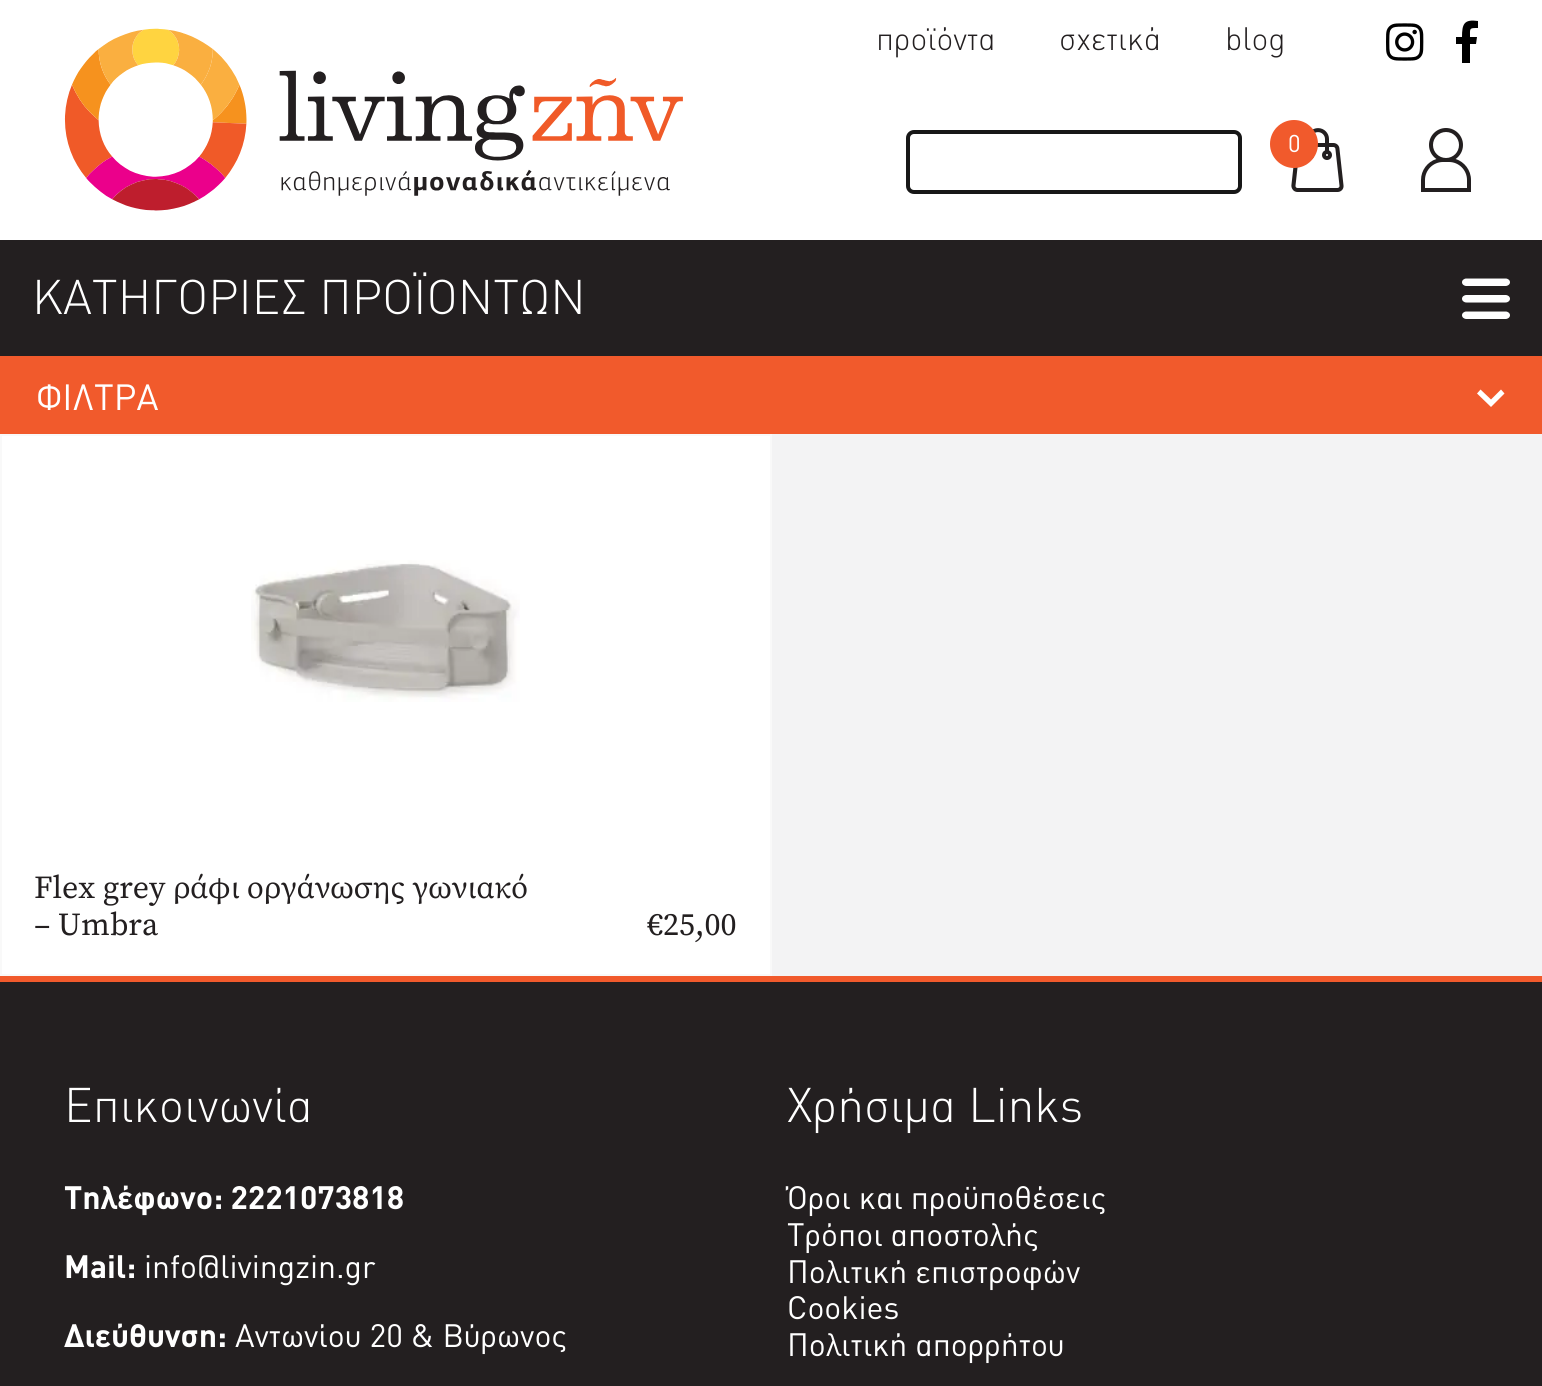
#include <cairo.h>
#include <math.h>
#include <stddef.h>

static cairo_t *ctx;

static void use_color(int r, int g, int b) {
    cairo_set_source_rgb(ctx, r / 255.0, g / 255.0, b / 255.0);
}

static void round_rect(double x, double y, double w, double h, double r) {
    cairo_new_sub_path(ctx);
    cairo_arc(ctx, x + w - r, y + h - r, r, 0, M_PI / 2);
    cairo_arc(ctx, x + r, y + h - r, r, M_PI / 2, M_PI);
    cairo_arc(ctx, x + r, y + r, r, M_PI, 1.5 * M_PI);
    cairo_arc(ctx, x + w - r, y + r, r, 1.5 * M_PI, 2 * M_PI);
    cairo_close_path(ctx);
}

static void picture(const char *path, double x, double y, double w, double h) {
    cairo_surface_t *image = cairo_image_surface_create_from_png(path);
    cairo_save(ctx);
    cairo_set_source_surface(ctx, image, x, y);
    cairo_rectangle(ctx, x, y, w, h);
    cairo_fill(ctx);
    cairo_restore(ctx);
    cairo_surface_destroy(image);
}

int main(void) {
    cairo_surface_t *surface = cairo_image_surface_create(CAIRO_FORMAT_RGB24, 1542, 1386);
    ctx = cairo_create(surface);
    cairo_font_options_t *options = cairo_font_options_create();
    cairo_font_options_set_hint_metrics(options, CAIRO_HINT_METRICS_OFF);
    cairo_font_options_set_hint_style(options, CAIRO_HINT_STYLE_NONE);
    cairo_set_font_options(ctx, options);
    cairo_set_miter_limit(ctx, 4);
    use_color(255, 255, 255);
    cairo_paint(ctx);
    picture("img1.png", 64, 28, 619, 183);
    cairo_select_font_face(ctx, "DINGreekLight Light", CAIRO_FONT_SLANT_NORMAL, CAIRO_FONT_WEIGHT_NORMAL);
    cairo_set_font_size(ctx, 32);
    use_color(35, 31, 32);
    cairo_move_to(ctx, 876, 50);
    cairo_show_text(ctx, "προϊόντα");
    cairo_move_to(ctx, 1059, 50);
    cairo_show_text(ctx, "σχετικά");
    cairo_move_to(ctx, 1225, 50);
    cairo_show_text(ctx, "blog");
    round_rect(908, 132, 332, 60, 6);
    use_color(23, 23, 23);
    cairo_set_line_width(ctx, 4);
    cairo_stroke(ctx);
    picture("img2.png", 1291, 128, 53, 64);
    use_color(241, 90, 44);
    cairo_arc(ctx, 1294, 144, 24, 0, 2 * M_PI);
    cairo_fill(ctx);
    cairo_select_font_face(ctx, "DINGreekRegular", CAIRO_FONT_SLANT_NORMAL, CAIRO_FONT_WEIGHT_NORMAL);
    cairo_set_font_size(ctx, 24);
    use_color(255, 255, 255);
    cairo_move_to(ctx, 1288, 152);
    cairo_show_text(ctx, "0");
    picture("img3.png", 1421, 128, 50, 64);
    picture("img4.png", 1386, 23, 38, 38);
    use_color(0, 0, 0);
    cairo_new_path(ctx);
    cairo_move_to(ctx, 1462, 63);
    cairo_line_to(ctx, 1462, 44);
    cairo_line_to(ctx, 1456, 44);
    cairo_line_to(ctx, 1456, 37);
    cairo_line_to(ctx, 1462, 37);
    cairo_curve_to(ctx, 1462, 24, 1464, 19, 1478, 21);
    cairo_line_to(ctx, 1478, 28);
    cairo_curve_to(ctx, 1469, 28, 1470, 28, 1470, 37);
    cairo_line_to(ctx, 1477, 37);
    cairo_line_to(ctx, 1476, 44);
    cairo_line_to(ctx, 1470, 44);
    cairo_line_to(ctx, 1470, 63);
    cairo_close_path(ctx);
    cairo_fill(ctx);
    use_color(35, 31, 32);
    cairo_rectangle(ctx, 0, 240, 1542, 116);
    cairo_fill(ctx);
    use_color(241, 90, 44);
    cairo_rectangle(ctx, 0, 356, 1542, 78);
    cairo_fill(ctx);
    picture("img5.png", 1462, 278, 48, 41);
    cairo_select_font_face(ctx, "DINGreekLight Light", CAIRO_FONT_SLANT_NORMAL, CAIRO_FONT_WEIGHT_NORMAL);
    cairo_set_font_size(ctx, 48);
    use_color(255, 255, 255);
    cairo_move_to(ctx, 32, 314);
    cairo_show_text(ctx, "ΚΑΤΗΓΟΡΙΕΣ ΠΡΟΪΟΝΤΩΝ");
    use_color(243, 243, 244);
    cairo_rectangle(ctx, 772, 434, 770, 542);
    cairo_fill(ctx);
    use_color(255, 255, 255);
    cairo_new_path(ctx);
    cairo_move_to(ctx, 1501, 389.5);
    cairo_line_to(ctx, 1504.5, 393.5);
    cairo_line_to(ctx, 1491, 407);
    cairo_line_to(ctx, 1477, 393.5);
    cairo_line_to(ctx, 1480.5, 389.5);
    cairo_line_to(ctx, 1491, 399.5);
    cairo_close_path(ctx);
    cairo_fill(ctx);
    cairo_select_font_face(ctx, "DINGreekRegular", CAIRO_FONT_SLANT_NORMAL, CAIRO_FONT_WEIGHT_NORMAL);
    cairo_set_font_size(ctx, 36);
    cairo_move_to(ctx, 36, 410);
    cairo_show_text(ctx, "ΦΙΛΤΡΑ");
    cairo_rectangle(ctx, 1, 435, 770, 540);
    use_color(249, 249, 249);
    cairo_set_line_width(ctx, 2);
    cairo_stroke(ctx);
    picture("img6.png", 251, 560, 269, 142);
    cairo_select_font_face(ctx, "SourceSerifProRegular", CAIRO_FONT_SLANT_NORMAL, CAIRO_FONT_WEIGHT_NORMAL);
    cairo_set_font_size(ctx, 32);
    use_color(35, 31, 32);
    cairo_move_to(ctx, 34, 898);
    cairo_show_text(ctx, "Flex grey ράφι οργάνωσης γωνιακό");
    cairo_move_to(ctx, 34, 935);
    cairo_show_text(ctx, "– Umbra");
    cairo_move_to(ctx, 647, 935);
    cairo_show_text(ctx, "€25,00");
    cairo_rectangle(ctx, 0, 982, 1542, 404);
    cairo_fill(ctx);
    use_color(241, 90, 44);
    cairo_rectangle(ctx, 0, 976, 1542, 6);
    cairo_fill(ctx);
    cairo_select_font_face(ctx, "DINGreekLight Light", CAIRO_FONT_SLANT_NORMAL, CAIRO_FONT_WEIGHT_NORMAL);
    cairo_set_font_size(ctx, 48);
    use_color(255, 255, 255);
    cairo_move_to(ctx, 64, 1122);
    cairo_show_text(ctx, "Επικοινωνία");
    cairo_select_font_face(ctx, "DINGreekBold", CAIRO_FONT_SLANT_NORMAL, CAIRO_FONT_WEIGHT_BOLD);
    cairo_set_font_size(ctx, 32);
    cairo_move_to(ctx, 64, 1209);
    cairo_show_text(ctx, "Τηλέφωνο: 2221073818");
    cairo_move_to(ctx, 64, 1278);
    cairo_show_text(ctx, "Mail:");
    cairo_select_font_face(ctx, "DINGreekRegular", CAIRO_FONT_SLANT_NORMAL, CAIRO_FONT_WEIGHT_NORMAL);
    cairo_move_to(ctx, 144, 1278);
    cairo_show_text(ctx, "info@livingzin.gr");
    cairo_select_font_face(ctx, "DINGreekBold", CAIRO_FONT_SLANT_NORMAL, CAIRO_FONT_WEIGHT_BOLD);
    cairo_move_to(ctx, 64, 1347);
    cairo_show_text(ctx, "Διεύθυνση:");
    cairo_select_font_face(ctx, "DINGreekRegular", CAIRO_FONT_SLANT_NORMAL, CAIRO_FONT_WEIGHT_NORMAL);
    cairo_move_to(ctx, 235, 1347);
    cairo_show_text(ctx, "Αντωνίου 20 & Βύρωνος");
    cairo_select_font_face(ctx, "DINGreekLight Light", CAIRO_FONT_SLANT_NORMAL, CAIRO_FONT_WEIGHT_NORMAL);
    cairo_set_font_size(ctx, 48);
    cairo_move_to(ctx, 787, 1122);
    cairo_show_text(ctx, "Χρήσιμα Links");
    cairo_select_font_face(ctx, "DINGreekRegular", CAIRO_FONT_SLANT_NORMAL, CAIRO_FONT_WEIGHT_NORMAL);
    cairo_set_font_size(ctx, 32);
    cairo_move_to(ctx, 787, 1209);
    cairo_show_text(ctx, "Όροι και προϋποθέσεις");
    cairo_move_to(ctx, 787, 1246);
    cairo_show_text(ctx, "Τρόποι αποστολής");
    cairo_move_to(ctx, 787, 1283);
    cairo_show_text(ctx, "Πολιτική επιστροφών");
    cairo_move_to(ctx, 787, 1319);
    cairo_show_text(ctx, "Cookies");
    cairo_move_to(ctx, 787, 1356);
    cairo_show_text(ctx, "Πολιτική απορρήτου");
    cairo_surface_write_to_png(surface, "result.png");
    cairo_font_options_destroy(options);
    cairo_destroy(ctx);
    cairo_surface_destroy(surface);
    return 0;
}
